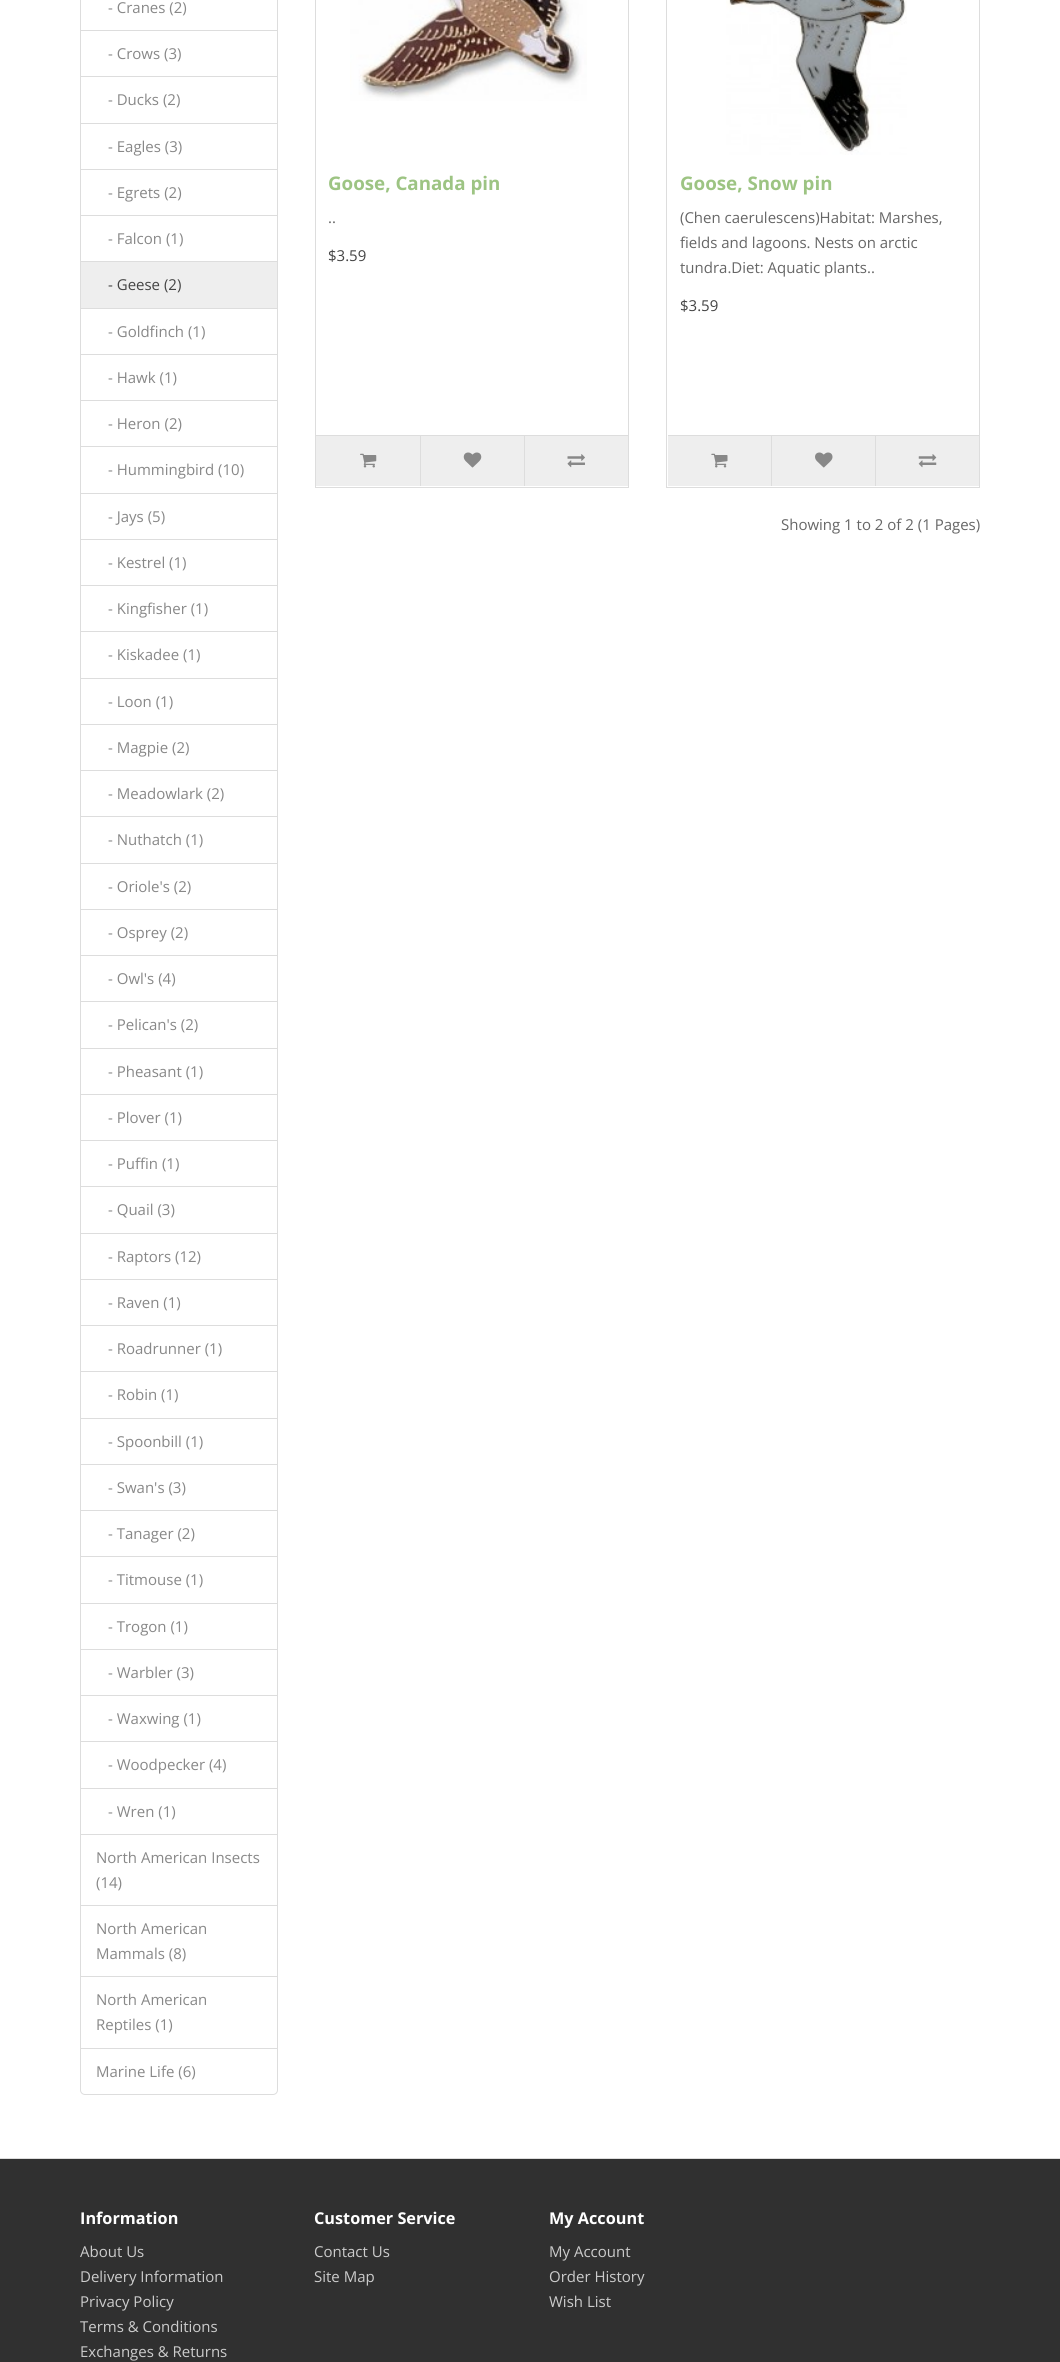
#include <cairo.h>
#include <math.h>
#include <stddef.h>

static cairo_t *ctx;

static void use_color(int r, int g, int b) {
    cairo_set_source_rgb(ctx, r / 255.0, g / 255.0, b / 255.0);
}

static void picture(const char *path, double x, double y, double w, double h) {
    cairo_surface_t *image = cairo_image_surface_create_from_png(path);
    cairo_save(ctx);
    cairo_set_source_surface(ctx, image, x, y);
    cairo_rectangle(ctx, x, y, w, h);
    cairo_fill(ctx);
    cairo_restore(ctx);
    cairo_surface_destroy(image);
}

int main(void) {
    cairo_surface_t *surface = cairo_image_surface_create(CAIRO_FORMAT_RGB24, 1060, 2362);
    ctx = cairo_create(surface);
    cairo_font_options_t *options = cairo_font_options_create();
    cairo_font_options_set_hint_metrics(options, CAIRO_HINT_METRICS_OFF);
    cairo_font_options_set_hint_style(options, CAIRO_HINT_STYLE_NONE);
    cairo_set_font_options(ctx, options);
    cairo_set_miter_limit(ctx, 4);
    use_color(255, 255, 255);
    cairo_paint(ctx);
    cairo_rectangle(ctx, 80.5, -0.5, 197, 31);
    use_color(221, 221, 221);
    cairo_set_line_width(ctx, 1);
    cairo_stroke(ctx);
    cairo_select_font_face(ctx, "Open Sans", CAIRO_FONT_SLANT_NORMAL, CAIRO_FONT_WEIGHT_NORMAL);
    cairo_set_font_size(ctx, 15);
    use_color(136, 136, 136);
    cairo_move_to(ctx, 108, 13);
    cairo_show_text(ctx, "- Cranes (2)");
    cairo_rectangle(ctx, 80.5, 30.5, 197, 47);
    use_color(221, 221, 221);
    cairo_stroke(ctx);
    use_color(136, 136, 136);
    cairo_move_to(ctx, 108, 59);
    cairo_show_text(ctx, "- Crows (3)");
    use_color(255, 255, 255);
    cairo_rectangle(ctx, 81, 77, 196, 1);
    cairo_fill(ctx);
    cairo_rectangle(ctx, 80.5, 76.5, 197, 47);
    use_color(221, 221, 221);
    cairo_stroke(ctx);
    use_color(136, 136, 136);
    cairo_move_to(ctx, 108, 105);
    cairo_show_text(ctx, "- Ducks (2)");
    cairo_rectangle(ctx, 80.5, 123.5, 197, 46);
    use_color(221, 221, 221);
    cairo_stroke(ctx);
    use_color(136, 136, 136);
    cairo_move_to(ctx, 108, 152);
    cairo_show_text(ctx, "- Eagles (3)");
    cairo_rectangle(ctx, 80.5, 169.5, 197, 46);
    use_color(221, 221, 221);
    cairo_stroke(ctx);
    use_color(136, 136, 136);
    cairo_move_to(ctx, 108, 198);
    cairo_show_text(ctx, "- Egrets (2)");
    cairo_rectangle(ctx, 80.5, 215.5, 197, 47);
    use_color(221, 221, 221);
    cairo_stroke(ctx);
    use_color(136, 136, 136);
    cairo_move_to(ctx, 108, 244);
    cairo_show_text(ctx, "- Falcon (1)");
    cairo_rectangle(ctx, 80.5, 308.5, 197, 46);
    use_color(221, 221, 221);
    cairo_stroke(ctx);
    use_color(238, 238, 238);
    cairo_rectangle(ctx, 80.5, 261.5, 197, 47);
    cairo_fill_preserve(ctx);
    use_color(221, 221, 221);
    cairo_stroke(ctx);
    use_color(68, 68, 68);
    cairo_move_to(ctx, 108, 290);
    cairo_show_text(ctx, "- Geese (2)");
    use_color(136, 136, 136);
    cairo_move_to(ctx, 108, 337);
    cairo_show_text(ctx, "- Goldfinch (1)");
    cairo_rectangle(ctx, 80.5, 354.5, 197, 46);
    use_color(221, 221, 221);
    cairo_stroke(ctx);
    use_color(136, 136, 136);
    cairo_move_to(ctx, 108, 383);
    cairo_show_text(ctx, "- Hawk (1)");
    cairo_rectangle(ctx, 80.5, 400.5, 197, 47);
    use_color(221, 221, 221);
    cairo_stroke(ctx);
    use_color(136, 136, 136);
    cairo_move_to(ctx, 108, 429);
    cairo_show_text(ctx, "- Heron (2)");
    use_color(255, 255, 255);
    cairo_rectangle(ctx, 81, 447, 196, 1);
    cairo_fill(ctx);
    cairo_rectangle(ctx, 80.5, 446.5, 197, 47);
    use_color(221, 221, 221);
    cairo_stroke(ctx);
    use_color(136, 136, 136);
    cairo_move_to(ctx, 108, 475);
    cairo_show_text(ctx, "- Hummingbird (10)");
    cairo_rectangle(ctx, 80.5, 493.5, 197, 46);
    use_color(221, 221, 221);
    cairo_stroke(ctx);
    use_color(136, 136, 136);
    cairo_move_to(ctx, 108, 522);
    cairo_show_text(ctx, "- Jays (5)");
    cairo_rectangle(ctx, 80.5, 539.5, 197, 46);
    use_color(221, 221, 221);
    cairo_stroke(ctx);
    use_color(136, 136, 136);
    cairo_move_to(ctx, 108, 568);
    cairo_show_text(ctx, "- Kestrel (1)");
    cairo_rectangle(ctx, 80.5, 585.5, 197, 47);
    use_color(221, 221, 221);
    cairo_stroke(ctx);
    use_color(136, 136, 136);
    cairo_move_to(ctx, 108, 614);
    cairo_show_text(ctx, "- Kingfisher (1)");
    use_color(255, 255, 255);
    cairo_rectangle(ctx, 81, 632, 196, 1);
    cairo_fill(ctx);
    cairo_rectangle(ctx, 80.5, 631.5, 197, 47);
    use_color(221, 221, 221);
    cairo_stroke(ctx);
    use_color(136, 136, 136);
    cairo_move_to(ctx, 108, 660);
    cairo_show_text(ctx, "- Kiskadee (1)");
    cairo_rectangle(ctx, 80.5, 678.5, 197, 46);
    use_color(221, 221, 221);
    cairo_stroke(ctx);
    use_color(136, 136, 136);
    cairo_move_to(ctx, 108, 707);
    cairo_show_text(ctx, "- Loon (1)");
    cairo_rectangle(ctx, 80.5, 724.5, 197, 46);
    use_color(221, 221, 221);
    cairo_stroke(ctx);
    use_color(136, 136, 136);
    cairo_move_to(ctx, 108, 753);
    cairo_show_text(ctx, "- Magpie (2)");
    cairo_rectangle(ctx, 80.5, 770.5, 197, 47);
    use_color(221, 221, 221);
    cairo_stroke(ctx);
    use_color(136, 136, 136);
    cairo_move_to(ctx, 108, 799);
    cairo_show_text(ctx, "- Meadowlark (2)");
    use_color(255, 255, 255);
    cairo_rectangle(ctx, 81, 817, 196, 1);
    cairo_fill(ctx);
    cairo_rectangle(ctx, 80.5, 816.5, 197, 47);
    use_color(221, 221, 221);
    cairo_stroke(ctx);
    use_color(136, 136, 136);
    cairo_move_to(ctx, 108, 845);
    cairo_show_text(ctx, "- Nuthatch (1)");
    cairo_rectangle(ctx, 80.5, 863.5, 197, 46);
    use_color(221, 221, 221);
    cairo_stroke(ctx);
    use_color(136, 136, 136);
    cairo_move_to(ctx, 108, 892);
    cairo_show_text(ctx, "- Oriole's (2)");
    cairo_rectangle(ctx, 80.5, 909.5, 197, 46);
    use_color(221, 221, 221);
    cairo_stroke(ctx);
    use_color(136, 136, 136);
    cairo_move_to(ctx, 108, 938);
    cairo_show_text(ctx, "- Osprey (2)");
    cairo_rectangle(ctx, 80.5, 955.5, 197, 47);
    use_color(221, 221, 221);
    cairo_stroke(ctx);
    use_color(136, 136, 136);
    cairo_move_to(ctx, 108, 984);
    cairo_show_text(ctx, "- Owl's (4)");
    use_color(255, 255, 255);
    cairo_rectangle(ctx, 81, 1002, 196, 1);
    cairo_fill(ctx);
    cairo_rectangle(ctx, 80.5, 1001.5, 197, 47);
    use_color(221, 221, 221);
    cairo_stroke(ctx);
    use_color(136, 136, 136);
    cairo_move_to(ctx, 108, 1030);
    cairo_show_text(ctx, "- Pelican's (2)");
    cairo_rectangle(ctx, 80.5, 1048.5, 197, 46);
    use_color(221, 221, 221);
    cairo_stroke(ctx);
    use_color(136, 136, 136);
    cairo_move_to(ctx, 108, 1077);
    cairo_show_text(ctx, "- Pheasant (1)");
    cairo_rectangle(ctx, 80.5, 1094.5, 197, 46);
    use_color(221, 221, 221);
    cairo_stroke(ctx);
    use_color(136, 136, 136);
    cairo_move_to(ctx, 108, 1123);
    cairo_show_text(ctx, "- Plover (1)");
    cairo_rectangle(ctx, 80.5, 1140.5, 197, 47);
    use_color(221, 221, 221);
    cairo_stroke(ctx);
    use_color(136, 136, 136);
    cairo_move_to(ctx, 108, 1169);
    cairo_show_text(ctx, "- Puffin (1)");
    use_color(255, 255, 255);
    cairo_rectangle(ctx, 81, 1187, 196, 1);
    cairo_fill(ctx);
    cairo_rectangle(ctx, 80.5, 1186.5, 197, 47);
    use_color(221, 221, 221);
    cairo_stroke(ctx);
    use_color(136, 136, 136);
    cairo_move_to(ctx, 108, 1215);
    cairo_show_text(ctx, "- Quail (3)");
    cairo_rectangle(ctx, 80.5, 1233.5, 197, 46);
    use_color(221, 221, 221);
    cairo_stroke(ctx);
    use_color(136, 136, 136);
    cairo_move_to(ctx, 108, 1262);
    cairo_show_text(ctx, "- Raptors (12)");
    cairo_rectangle(ctx, 80.5, 1279.5, 197, 46);
    use_color(221, 221, 221);
    cairo_stroke(ctx);
    use_color(136, 136, 136);
    cairo_move_to(ctx, 108, 1308);
    cairo_show_text(ctx, "- Raven (1)");
    cairo_rectangle(ctx, 80.5, 1325.5, 197, 47);
    use_color(221, 221, 221);
    cairo_stroke(ctx);
    use_color(136, 136, 136);
    cairo_move_to(ctx, 108, 1354);
    cairo_show_text(ctx, "- Roadrunner (1)");
    use_color(255, 255, 255);
    cairo_rectangle(ctx, 81, 1372, 196, 1);
    cairo_fill(ctx);
    cairo_rectangle(ctx, 80.5, 1371.5, 197, 47);
    use_color(221, 221, 221);
    cairo_stroke(ctx);
    use_color(136, 136, 136);
    cairo_move_to(ctx, 108, 1400);
    cairo_show_text(ctx, "- Robin (1)");
    cairo_rectangle(ctx, 80.5, 1418.5, 197, 46);
    use_color(221, 221, 221);
    cairo_stroke(ctx);
    use_color(136, 136, 136);
    cairo_move_to(ctx, 108, 1447);
    cairo_show_text(ctx, "- Spoonbill (1)");
    cairo_rectangle(ctx, 80.5, 1464.5, 197, 46);
    use_color(221, 221, 221);
    cairo_stroke(ctx);
    use_color(136, 136, 136);
    cairo_move_to(ctx, 108, 1493);
    cairo_show_text(ctx, "- Swan's (3)");
    cairo_rectangle(ctx, 80.5, 1510.5, 197, 47);
    use_color(221, 221, 221);
    cairo_stroke(ctx);
    use_color(136, 136, 136);
    cairo_move_to(ctx, 108, 1539);
    cairo_show_text(ctx, "- Tanager (2)");
    use_color(255, 255, 255);
    cairo_rectangle(ctx, 81, 1557, 196, 1);
    cairo_fill(ctx);
    cairo_rectangle(ctx, 80.5, 1556.5, 197, 47);
    use_color(221, 221, 221);
    cairo_stroke(ctx);
    use_color(136, 136, 136);
    cairo_move_to(ctx, 108, 1585);
    cairo_show_text(ctx, "- Titmouse (1)");
    cairo_rectangle(ctx, 80.5, 1603.5, 197, 46);
    use_color(221, 221, 221);
    cairo_stroke(ctx);
    use_color(136, 136, 136);
    cairo_move_to(ctx, 108, 1632);
    cairo_show_text(ctx, "- Trogon (1)");
    cairo_rectangle(ctx, 80.5, 1649.5, 197, 46);
    use_color(221, 221, 221);
    cairo_stroke(ctx);
    use_color(136, 136, 136);
    cairo_move_to(ctx, 108, 1678);
    cairo_show_text(ctx, "- Warbler (3)");
    cairo_rectangle(ctx, 80.5, 1695.5, 197, 47);
    use_color(221, 221, 221);
    cairo_stroke(ctx);
    use_color(136, 136, 136);
    cairo_move_to(ctx, 108, 1724);
    cairo_show_text(ctx, "- Waxwing (1)");
    use_color(255, 255, 255);
    cairo_rectangle(ctx, 81, 1742, 196, 1);
    cairo_fill(ctx);
    cairo_rectangle(ctx, 80.5, 1741.5, 197, 47);
    use_color(221, 221, 221);
    cairo_stroke(ctx);
    use_color(136, 136, 136);
    cairo_move_to(ctx, 108, 1770);
    cairo_show_text(ctx, "- Woodpecker (4)");
    cairo_rectangle(ctx, 80.5, 1788.5, 197, 46);
    use_color(221, 221, 221);
    cairo_stroke(ctx);
    use_color(136, 136, 136);
    cairo_move_to(ctx, 108, 1817);
    cairo_show_text(ctx, "- Wren (1)");
    cairo_rectangle(ctx, 80.5, 1834.5, 197, 71);
    use_color(221, 221, 221);
    cairo_stroke(ctx);
    use_color(136, 136, 136);
    cairo_move_to(ctx, 96, 1863);
    cairo_show_text(ctx, "North American Insects");
    cairo_move_to(ctx, 96, 1888);
    cairo_show_text(ctx, "(14)");
    cairo_rectangle(ctx, 80.5, 1905.5, 197, 72);
    use_color(221, 221, 221);
    cairo_stroke(ctx);
    use_color(136, 136, 136);
    cairo_move_to(ctx, 96, 1934);
    cairo_show_text(ctx, "North American");
    cairo_move_to(ctx, 96, 1959);
    cairo_show_text(ctx, "Mammals (8)");
    use_color(255, 255, 255);
    cairo_rectangle(ctx, 81, 1977, 196, 1);
    cairo_fill(ctx);
    cairo_rectangle(ctx, 80.5, 1976.5, 197, 72);
    use_color(221, 221, 221);
    cairo_stroke(ctx);
    use_color(136, 136, 136);
    cairo_move_to(ctx, 96, 2005);
    cairo_show_text(ctx, "North American");
    cairo_move_to(ctx, 96, 2030);
    cairo_show_text(ctx, "Reptiles (1)");
    use_color(255, 255, 255);
    cairo_new_path(ctx);
    cairo_move_to(ctx, 80.5, 2048.5);
    cairo_line_to(ctx, 277.5, 2048.5);
    cairo_line_to(ctx, 277.5, 2090);
    cairo_curve_to(ctx, 277.5, 2092.5, 275.5, 2094.5, 273, 2094.5);
    cairo_line_to(ctx, 85, 2094.5);
    cairo_curve_to(ctx, 82.5, 2094.5, 80.5, 2092.5, 80.5, 2090);
    cairo_close_path(ctx);
    cairo_fill_preserve(ctx);
    use_color(221, 221, 221);
    cairo_stroke(ctx);
    use_color(136, 136, 136);
    cairo_move_to(ctx, 96, 2077);
    cairo_show_text(ctx, "Marine Life (6)");
    cairo_rectangle(ctx, 315.5, -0.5, 313, 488);
    use_color(221, 221, 221);
    cairo_stroke(ctx);
    picture("img1.png", 350, 0, 237, 101);
    cairo_select_font_face(ctx, "Open Sans", CAIRO_FONT_SLANT_NORMAL, CAIRO_FONT_WEIGHT_BOLD);
    cairo_set_font_size(ctx, 18.75);
    use_color(157, 196, 131);
    cairo_move_to(ctx, 328, 190);
    cairo_show_text(ctx, "Goose, Canada pin");
    cairo_select_font_face(ctx, "Open Sans", CAIRO_FONT_SLANT_NORMAL, CAIRO_FONT_WEIGHT_NORMAL);
    cairo_set_font_size(ctx, 15);
    use_color(102, 102, 102);
    cairo_move_to(ctx, 328, 223);
    cairo_show_text(ctx, "..");
    use_color(68, 68, 68);
    cairo_move_to(ctx, 328, 261);
    cairo_show_text(ctx, "$3.59");
    use_color(238, 238, 238);
    cairo_rectangle(ctx, 316, 436, 312, 50);
    cairo_fill(ctx);
    use_color(221, 221, 221);
    cairo_rectangle(ctx, 316, 435, 312, 1);
    cairo_fill(ctx);
    picture("img2.png", 360, 453, 17, 15);
    cairo_rectangle(ctx, 420, 436, 1, 50);
    cairo_fill(ctx);
    picture("img3.png", 463, 452, 19, 16);
    cairo_rectangle(ctx, 524, 436, 1, 50);
    cairo_fill(ctx);
    picture("img4.png", 567, 454, 18, 14);
    cairo_rectangle(ctx, 666.5, -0.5, 313, 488);
    cairo_stroke(ctx);
    picture("img5.png", 726, 0, 181, 155);
    cairo_select_font_face(ctx, "Open Sans", CAIRO_FONT_SLANT_NORMAL, CAIRO_FONT_WEIGHT_BOLD);
    cairo_set_font_size(ctx, 18.75);
    use_color(157, 196, 131);
    cairo_move_to(ctx, 680, 190);
    cairo_show_text(ctx, "Goose, Snow pin");
    cairo_select_font_face(ctx, "Open Sans", CAIRO_FONT_SLANT_NORMAL, CAIRO_FONT_WEIGHT_NORMAL);
    cairo_set_font_size(ctx, 15);
    use_color(102, 102, 102);
    cairo_move_to(ctx, 680, 223);
    cairo_show_text(ctx, "(Chen caerulescens)Habitat: Marshes,");
    cairo_move_to(ctx, 680, 248);
    cairo_show_text(ctx, "fields and lagoons. Nests on arctic");
    cairo_move_to(ctx, 680, 273);
    cairo_show_text(ctx, "tundra.Diet: Aquatic plants..");
    use_color(68, 68, 68);
    cairo_move_to(ctx, 680, 311);
    cairo_show_text(ctx, "$3.59");
    use_color(238, 238, 238);
    cairo_rectangle(ctx, 668, 436, 311, 50);
    cairo_fill(ctx);
    use_color(221, 221, 221);
    cairo_rectangle(ctx, 668, 435, 311, 1);
    cairo_fill(ctx);
    picture("img6.png", 711, 453, 17, 15);
    cairo_rectangle(ctx, 771, 436, 1, 50);
    cairo_fill(ctx);
    picture("img7.png", 815, 452, 18, 16);
    cairo_rectangle(ctx, 875, 436, 1, 50);
    cairo_fill(ctx);
    picture("img8.png", 918, 454, 19, 14);
    use_color(102, 102, 102);
    cairo_move_to(ctx, 781, 530);
    cairo_show_text(ctx, "Showing 1 to 2 of 2 (1 Pages)");
    use_color(48, 48, 48);
    cairo_rectangle(ctx, 0, 2159, 1060, 203);
    cairo_fill(ctx);
    use_color(221, 221, 221);
    cairo_rectangle(ctx, 0, 2158, 1060, 1);
    cairo_fill(ctx);
    cairo_select_font_face(ctx, "Open Sans", CAIRO_FONT_SLANT_NORMAL, CAIRO_FONT_WEIGHT_BOLD);
    cairo_set_font_size(ctx, 16.25);
    use_color(255, 255, 255);
    cairo_move_to(ctx, 80, 2224);
    cairo_show_text(ctx, "Information");
    cairo_select_font_face(ctx, "Open Sans", CAIRO_FONT_SLANT_NORMAL, CAIRO_FONT_WEIGHT_NORMAL);
    cairo_set_font_size(ctx, 15);
    use_color(204, 204, 204);
    cairo_move_to(ctx, 80, 2257);
    cairo_show_text(ctx, "About Us");
    cairo_move_to(ctx, 80, 2282);
    cairo_show_text(ctx, "Delivery Information");
    cairo_move_to(ctx, 80, 2307);
    cairo_show_text(ctx, "Privacy Policy");
    cairo_move_to(ctx, 80, 2332);
    cairo_show_text(ctx, "Terms & Conditions");
    cairo_move_to(ctx, 80, 2357);
    cairo_show_text(ctx, "Exchanges & Returns");
    cairo_select_font_face(ctx, "Open Sans", CAIRO_FONT_SLANT_NORMAL, CAIRO_FONT_WEIGHT_BOLD);
    cairo_set_font_size(ctx, 16.25);
    use_color(255, 255, 255);
    cairo_move_to(ctx, 314, 2224);
    cairo_show_text(ctx, "Customer Service");
    cairo_select_font_face(ctx, "Open Sans", CAIRO_FONT_SLANT_NORMAL, CAIRO_FONT_WEIGHT_NORMAL);
    cairo_set_font_size(ctx, 15);
    use_color(204, 204, 204);
    cairo_move_to(ctx, 314, 2257);
    cairo_show_text(ctx, "Contact Us");
    cairo_move_to(ctx, 314, 2282);
    cairo_show_text(ctx, "Site Map");
    cairo_select_font_face(ctx, "Open Sans", CAIRO_FONT_SLANT_NORMAL, CAIRO_FONT_WEIGHT_BOLD);
    cairo_set_font_size(ctx, 16.25);
    use_color(255, 255, 255);
    cairo_move_to(ctx, 549, 2224);
    cairo_show_text(ctx, "My Account");
    cairo_select_font_face(ctx, "Open Sans", CAIRO_FONT_SLANT_NORMAL, CAIRO_FONT_WEIGHT_NORMAL);
    cairo_set_font_size(ctx, 15);
    use_color(204, 204, 204);
    cairo_move_to(ctx, 549, 2257);
    cairo_show_text(ctx, "My Account");
    cairo_move_to(ctx, 549, 2282);
    cairo_show_text(ctx, "Order History");
    cairo_move_to(ctx, 549, 2307);
    cairo_show_text(ctx, "Wish List");
    cairo_surface_write_to_png(surface, "result.png");
    cairo_font_options_destroy(options);
    cairo_destroy(ctx);
    cairo_surface_destroy(surface);
    return 0;
}
